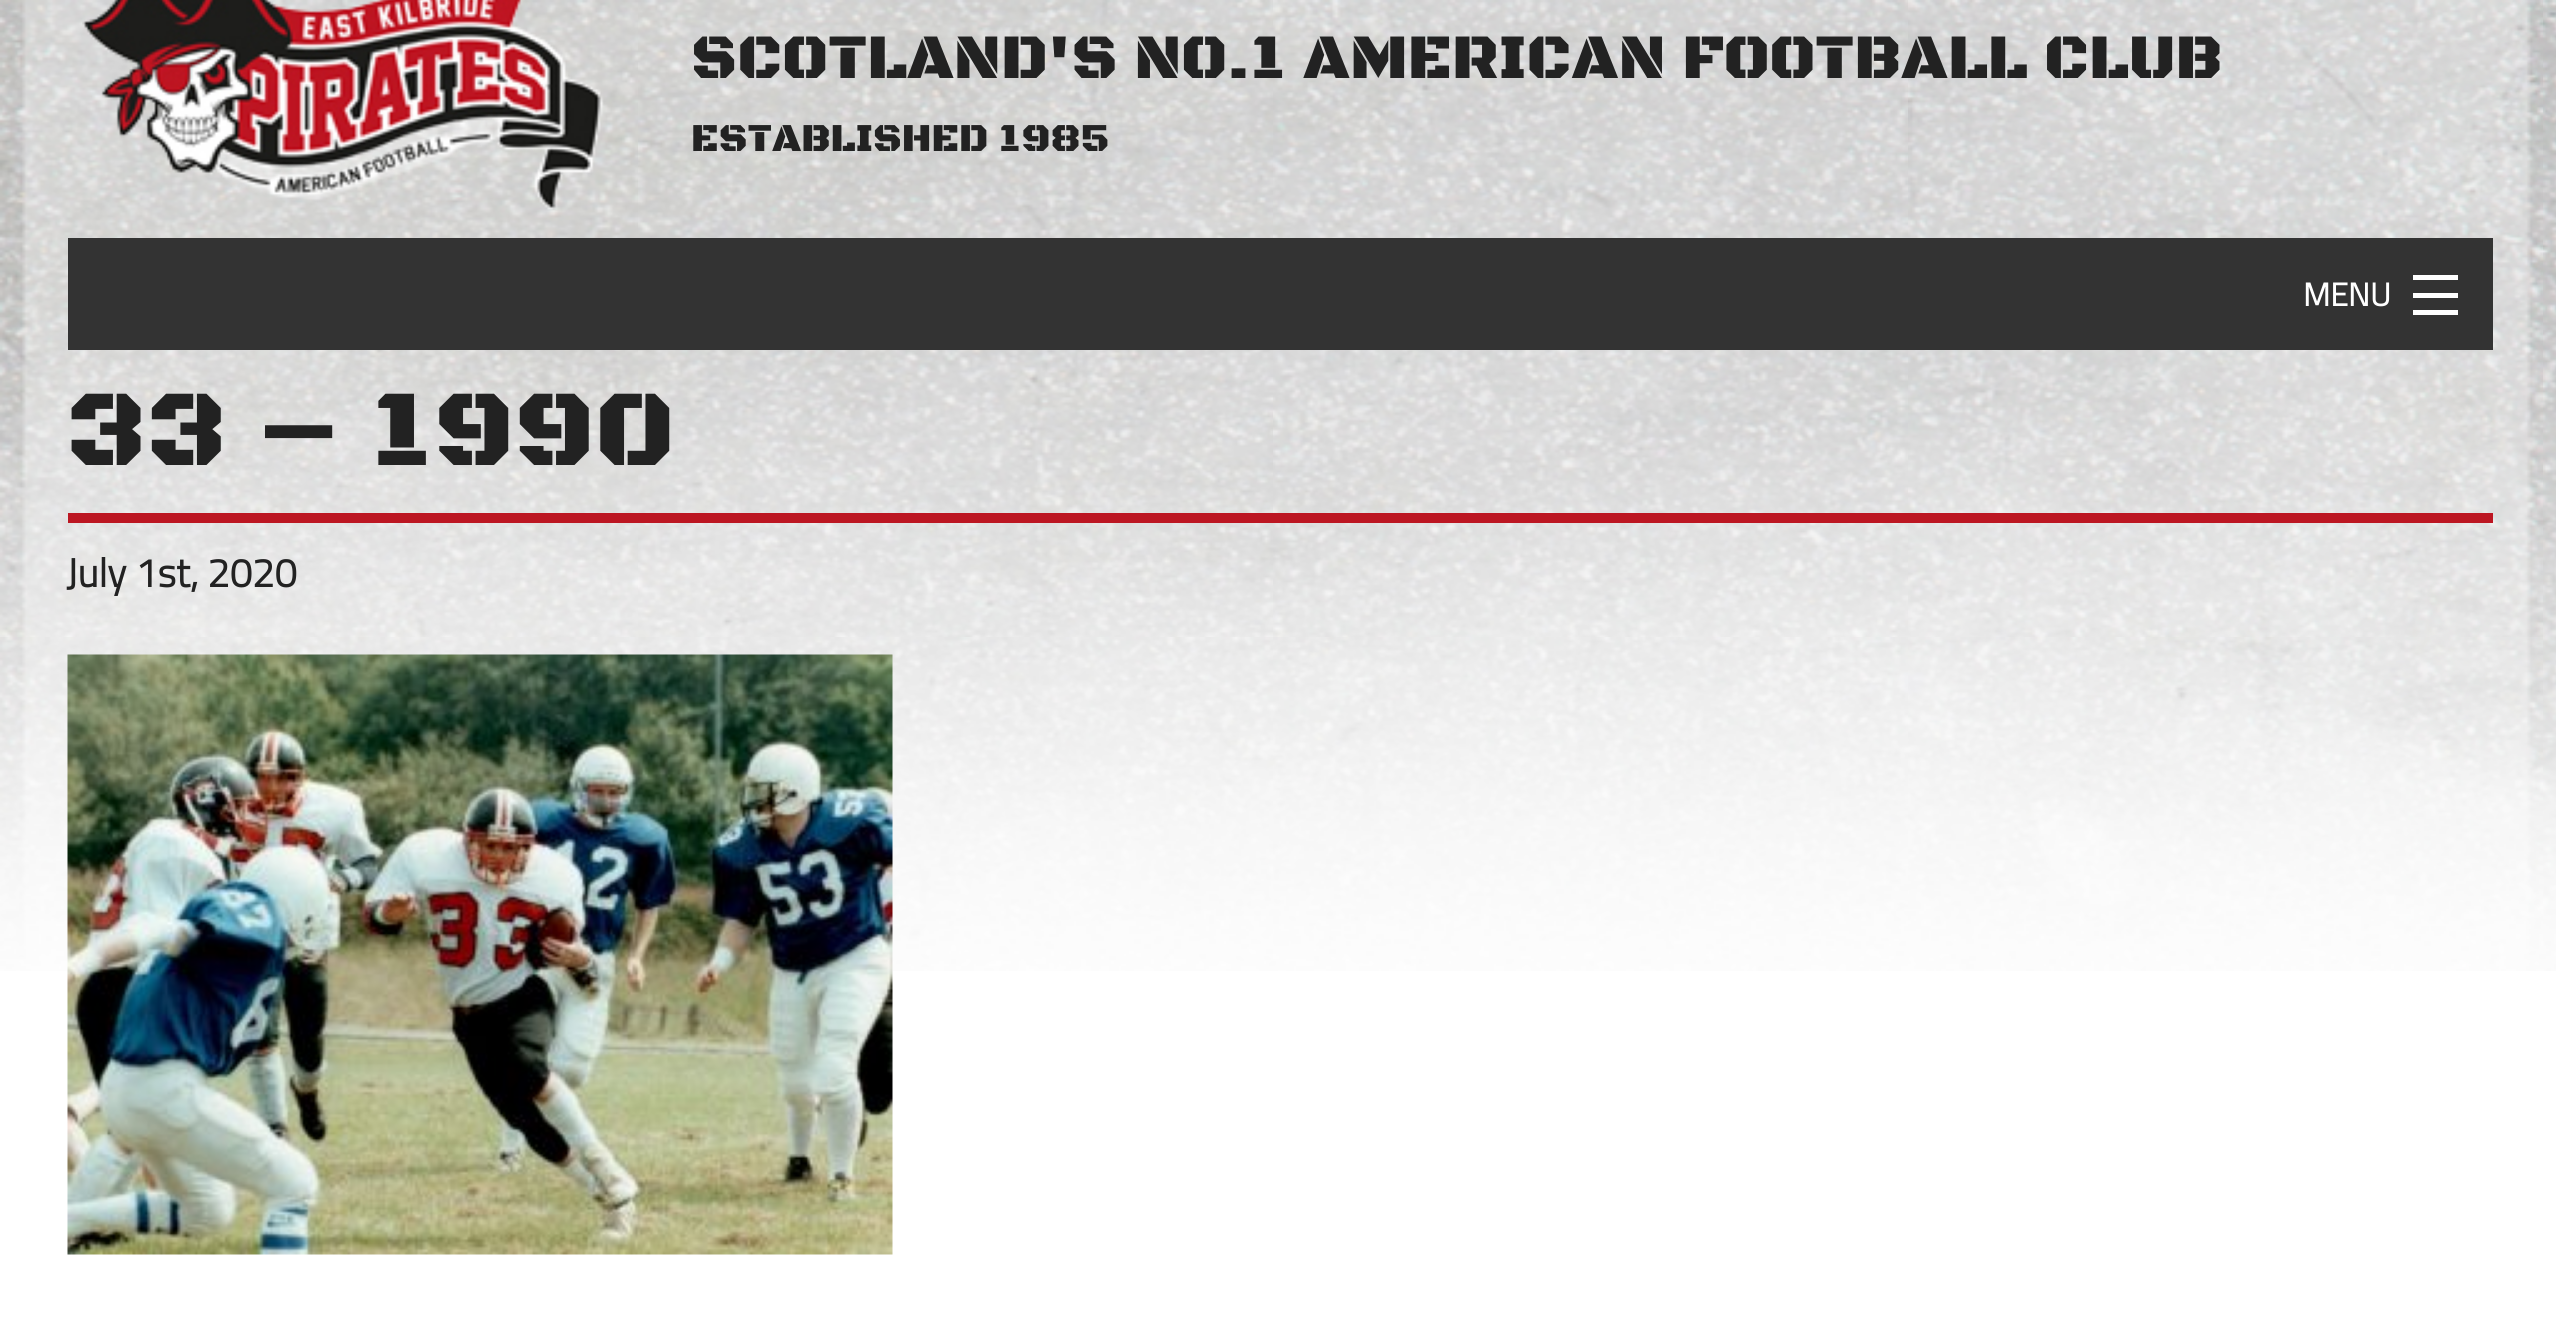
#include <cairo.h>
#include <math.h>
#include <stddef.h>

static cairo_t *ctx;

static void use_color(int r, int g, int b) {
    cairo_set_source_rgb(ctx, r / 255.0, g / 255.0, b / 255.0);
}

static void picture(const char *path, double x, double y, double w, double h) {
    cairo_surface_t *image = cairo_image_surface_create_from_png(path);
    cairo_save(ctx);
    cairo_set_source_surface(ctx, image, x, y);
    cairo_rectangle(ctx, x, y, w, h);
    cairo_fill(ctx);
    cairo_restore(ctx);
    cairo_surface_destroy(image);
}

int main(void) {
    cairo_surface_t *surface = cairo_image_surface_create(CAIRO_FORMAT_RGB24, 2556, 1318);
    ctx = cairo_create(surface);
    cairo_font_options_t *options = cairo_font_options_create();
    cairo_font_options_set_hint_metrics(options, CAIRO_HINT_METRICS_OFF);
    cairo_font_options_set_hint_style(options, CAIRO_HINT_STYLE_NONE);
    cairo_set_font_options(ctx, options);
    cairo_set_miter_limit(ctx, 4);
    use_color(255, 255, 255);
    cairo_paint(ctx);
    picture("img1.png", 0, 0, 2556, 971);
    picture("img2.png", 82, 0, 522, 210);
    cairo_select_font_face(ctx, "Black Ops One Black", CAIRO_FONT_SLANT_NORMAL, CAIRO_FONT_WEIGHT_NORMAL);
    cairo_set_font_size(ctx, 64);
    use_color(34, 34, 34);
    cairo_move_to(ctx, 691, 78);
    cairo_show_text(ctx, "SCOTLAND'S NO.1 AMERICAN FOOTBALL CLUB");
    cairo_set_font_size(ctx, 40);
    cairo_move_to(ctx, 691, 151);
    cairo_show_text(ctx, "ESTABLISHED 1985");
    use_color(51, 51, 51);
    cairo_rectangle(ctx, 68, 238, 2425, 112);
    cairo_fill(ctx);
    cairo_select_font_face(ctx, "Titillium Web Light", CAIRO_FONT_SLANT_NORMAL, CAIRO_FONT_WEIGHT_BOLD);
    cairo_set_font_size(ctx, 32.5);
    use_color(255, 255, 255);
    cairo_move_to(ctx, 2303, 306);
    cairo_show_text(ctx, "MENU");
    cairo_rectangle(ctx, 2413, 310, 45, 5);
    cairo_fill(ctx);
    cairo_rectangle(ctx, 2413, 293, 45, 5);
    cairo_fill(ctx);
    cairo_rectangle(ctx, 2413, 275, 45, 5);
    cairo_fill(ctx);
    use_color(188, 22, 34);
    cairo_rectangle(ctx, 68, 513, 2425, 10);
    cairo_fill(ctx);
    cairo_select_font_face(ctx, "Black Ops One Black", CAIRO_FONT_SLANT_NORMAL, CAIRO_FONT_WEIGHT_NORMAL);
    cairo_set_font_size(ctx, 110);
    use_color(34, 34, 34);
    cairo_move_to(ctx, 66, 465);
    cairo_show_text(ctx, "33 – 1990");
    cairo_select_font_face(ctx, "Titillium Web Light", CAIRO_FONT_SLANT_NORMAL, CAIRO_FONT_WEIGHT_BOLD);
    cairo_set_font_size(ctx, 40);
    cairo_move_to(ctx, 66, 587);
    cairo_show_text(ctx, "July 1st, 2020");
    picture("img3.png", 67, 654, 826, 601);
    cairo_surface_write_to_png(surface, "result.png");
    cairo_font_options_destroy(options);
    cairo_destroy(ctx);
    cairo_surface_destroy(surface);
    return 0;
}
